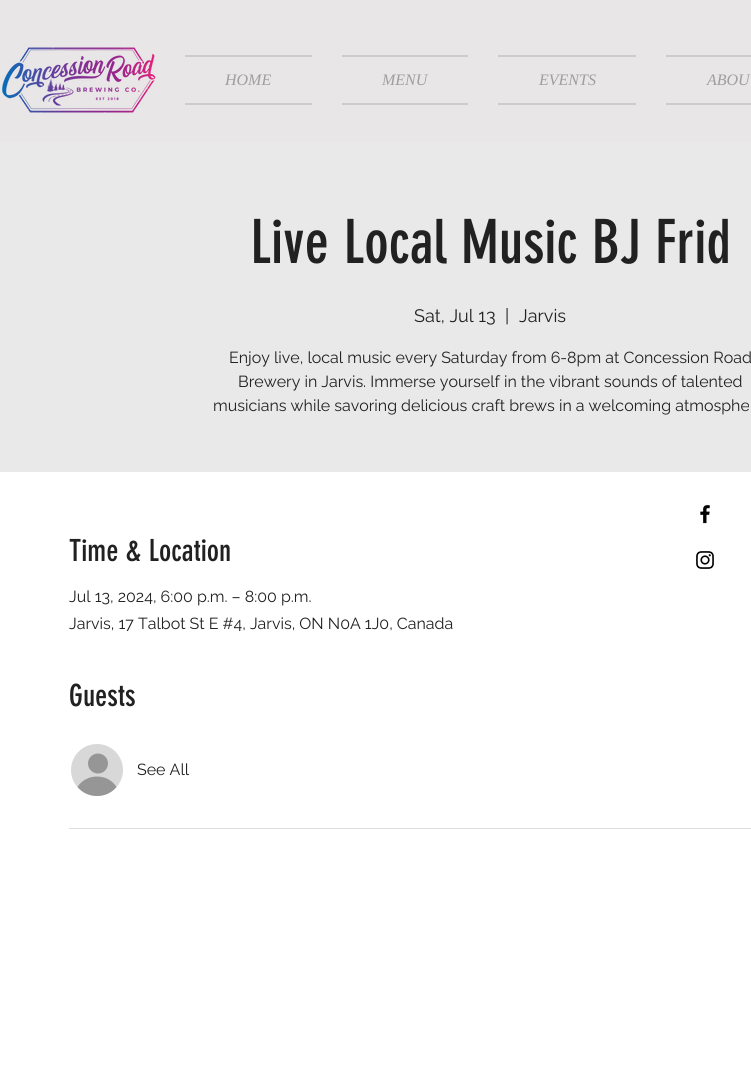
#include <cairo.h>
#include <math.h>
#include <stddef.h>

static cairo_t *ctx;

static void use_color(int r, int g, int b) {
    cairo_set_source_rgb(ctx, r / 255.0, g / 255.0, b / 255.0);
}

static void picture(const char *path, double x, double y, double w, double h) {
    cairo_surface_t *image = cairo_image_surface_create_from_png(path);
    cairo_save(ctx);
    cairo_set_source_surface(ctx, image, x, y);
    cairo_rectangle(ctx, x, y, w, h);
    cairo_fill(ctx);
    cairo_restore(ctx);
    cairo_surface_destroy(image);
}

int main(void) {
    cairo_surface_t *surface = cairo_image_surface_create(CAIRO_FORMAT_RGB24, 751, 1076);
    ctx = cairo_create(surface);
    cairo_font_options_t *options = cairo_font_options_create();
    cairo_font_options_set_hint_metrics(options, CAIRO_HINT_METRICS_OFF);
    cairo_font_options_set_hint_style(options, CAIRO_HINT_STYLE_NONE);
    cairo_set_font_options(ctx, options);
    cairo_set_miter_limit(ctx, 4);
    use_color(255, 255, 255);
    cairo_paint(ctx);
    use_color(232, 230, 230);
    cairo_rectangle(ctx, 0, 0, 751, 142);
    cairo_fill(ctx);
    picture("img1.png", 2, 47, 154, 66);
    use_color(204, 204, 204);
    cairo_rectangle(ctx, 185, 55, 127, 2);
    cairo_fill(ctx);
    cairo_rectangle(ctx, 185, 103, 127, 2);
    cairo_fill(ctx);
    cairo_select_font_face(ctx, "Liberation Serif", CAIRO_FONT_SLANT_ITALIC, CAIRO_FONT_WEIGHT_NORMAL);
    cairo_set_font_size(ctx, 16);
    use_color(158, 158, 158);
    cairo_move_to(ctx, 225, 85);
    cairo_show_text(ctx, "HOME");
    use_color(204, 204, 204);
    cairo_rectangle(ctx, 342, 55, 126, 2);
    cairo_fill(ctx);
    cairo_rectangle(ctx, 342, 103, 126, 2);
    cairo_fill(ctx);
    use_color(158, 158, 158);
    cairo_move_to(ctx, 382, 85);
    cairo_show_text(ctx, "MENU");
    use_color(204, 204, 204);
    cairo_rectangle(ctx, 498, 55, 138, 2);
    cairo_fill(ctx);
    cairo_rectangle(ctx, 498, 103, 138, 2);
    cairo_fill(ctx);
    use_color(158, 158, 158);
    cairo_move_to(ctx, 539, 85);
    cairo_show_text(ctx, "EVENTS");
    use_color(204, 204, 204);
    cairo_rectangle(ctx, 666, 55, 85, 2);
    cairo_fill(ctx);
    cairo_rectangle(ctx, 666, 103, 85, 2);
    cairo_fill(ctx);
    use_color(158, 158, 158);
    cairo_move_to(ctx, 707, 85);
    cairo_show_text(ctx, "ABOU");
    use_color(233, 233, 233);
    cairo_rectangle(ctx, 0, 142, 751, 330);
    cairo_fill(ctx);
    cairo_select_font_face(ctx, "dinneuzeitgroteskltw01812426", CAIRO_FONT_SLANT_NORMAL, CAIRO_FONT_WEIGHT_NORMAL);
    cairo_set_font_size(ctx, 60);
    use_color(33, 33, 33);
    cairo_move_to(ctx, 250, 263);
    cairo_show_text(ctx, "Live Local Music BJ Frid");
    cairo_select_font_face(ctx, "Raleway", CAIRO_FONT_SLANT_NORMAL, CAIRO_FONT_WEIGHT_NORMAL);
    cairo_set_font_size(ctx, 18);
    cairo_move_to(ctx, 414, 322);
    cairo_show_text(ctx, "Sat, Jul 13");
    cairo_move_to(ctx, 505, 322);
    cairo_show_text(ctx, "|");
    cairo_move_to(ctx, 519, 322);
    cairo_show_text(ctx, "Jarvis");
    cairo_set_font_size(ctx, 16);
    cairo_move_to(ctx, 229, 363);
    cairo_show_text(ctx, "Enjoy live, local music every Saturday from 6-8pm at Concession Road");
    cairo_move_to(ctx, 238, 387);
    cairo_show_text(ctx, "Brewery in Jarvis. Immerse yourself in the vibrant sounds of talented");
    cairo_move_to(ctx, 213, 411);
    cairo_show_text(ctx, "musicians while savoring delicious craft brews in a welcoming atmosphe");
    cairo_select_font_face(ctx, "dinneuzeitgroteskltw01812426", CAIRO_FONT_SLANT_NORMAL, CAIRO_FONT_WEIGHT_NORMAL);
    cairo_set_font_size(ctx, 30);
    cairo_move_to(ctx, 69, 561);
    cairo_show_text(ctx, "Time & Location");
    cairo_select_font_face(ctx, "Raleway", CAIRO_FONT_SLANT_NORMAL, CAIRO_FONT_WEIGHT_NORMAL);
    cairo_set_font_size(ctx, 16);
    cairo_move_to(ctx, 69, 602);
    cairo_show_text(ctx, "Jul 13, 2024, 6:00 p.m. – 8:00 p.m.");
    cairo_move_to(ctx, 69, 629);
    cairo_show_text(ctx, "Jarvis, 17 Talbot St E #4, Jarvis, ON N0A 1J0, Canada");
    cairo_select_font_face(ctx, "dinneuzeitgroteskltw01812426", CAIRO_FONT_SLANT_NORMAL, CAIRO_FONT_WEIGHT_NORMAL);
    cairo_set_font_size(ctx, 30);
    cairo_move_to(ctx, 69, 706);
    cairo_show_text(ctx, "Guests");
    use_color(216, 216, 216);
    cairo_new_path(ctx);
    cairo_arc(ctx, 97, 770, 27, 0, 2 * M_PI);
    cairo_fill_preserve(ctx);
    use_color(255, 255, 255);
    cairo_stroke(ctx);
    use_color(150, 150, 150);
    cairo_arc(ctx, 98, 763.5, 10, 0, 2 * M_PI);
    cairo_fill(ctx);
    cairo_new_path(ctx);
    cairo_move_to(ctx, 116.5, 787);
    cairo_curve_to(ctx, 106.5, 799, 87.5, 799, 77.5, 787);
    cairo_curve_to(ctx, 86, 773, 108, 773, 116.5, 787);
    cairo_close_path(ctx);
    cairo_fill(ctx);
    cairo_select_font_face(ctx, "Raleway", CAIRO_FONT_SLANT_NORMAL, CAIRO_FONT_WEIGHT_NORMAL);
    cairo_set_font_size(ctx, 16);
    use_color(33, 33, 33);
    cairo_move_to(ctx, 137, 775);
    cairo_show_text(ctx, "See All");
    use_color(222, 222, 222);
    cairo_rectangle(ctx, 69, 828, 682, 1);
    cairo_fill(ctx);
    picture("img2.png", 700, 504, 10, 20);
    picture("img3.png", 696, 551, 18, 18);
    cairo_surface_write_to_png(surface, "result.png");
    cairo_font_options_destroy(options);
    cairo_destroy(ctx);
    cairo_surface_destroy(surface);
    return 0;
}
